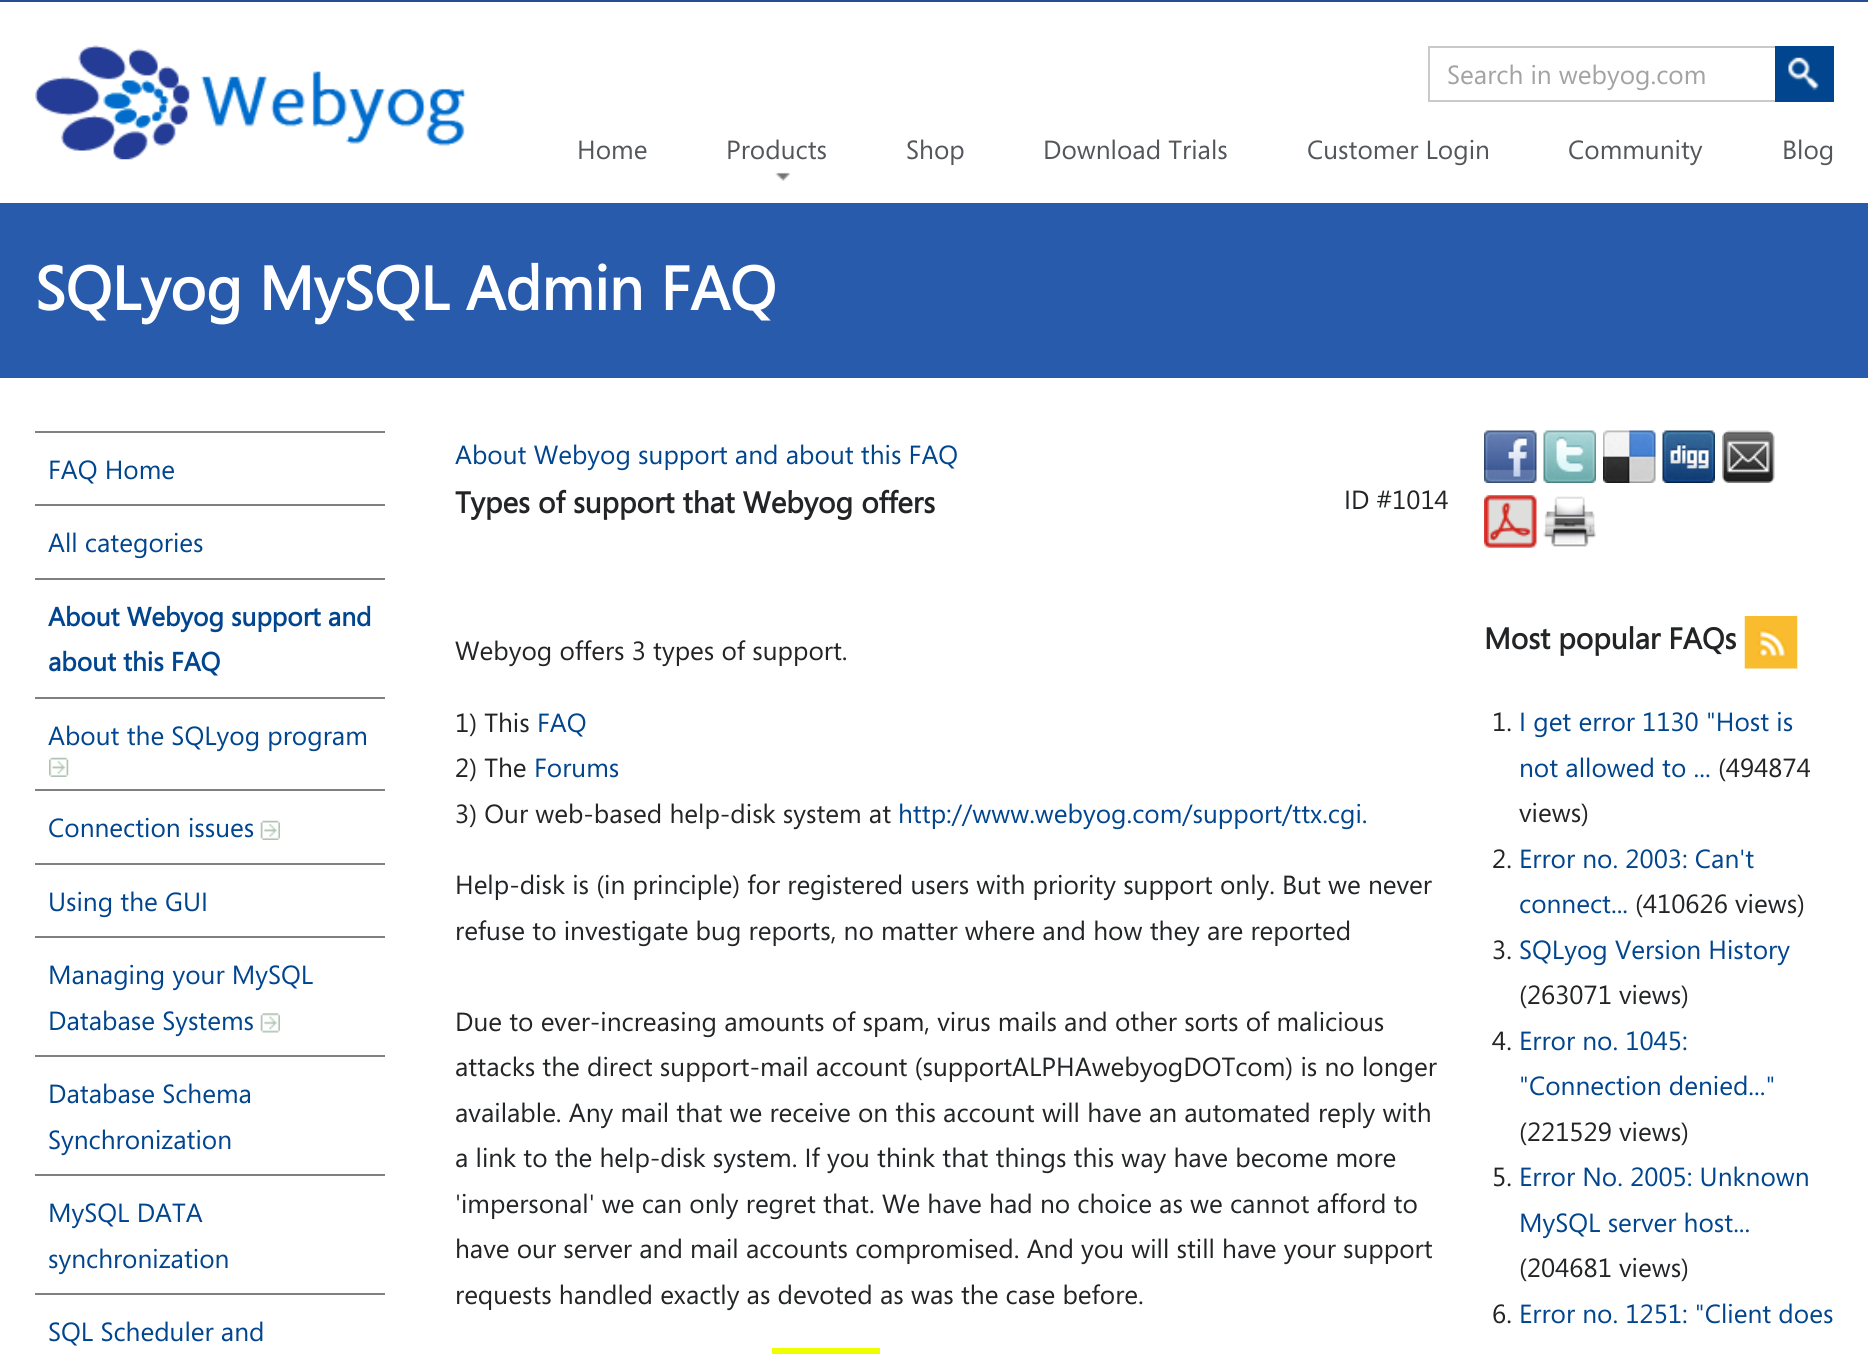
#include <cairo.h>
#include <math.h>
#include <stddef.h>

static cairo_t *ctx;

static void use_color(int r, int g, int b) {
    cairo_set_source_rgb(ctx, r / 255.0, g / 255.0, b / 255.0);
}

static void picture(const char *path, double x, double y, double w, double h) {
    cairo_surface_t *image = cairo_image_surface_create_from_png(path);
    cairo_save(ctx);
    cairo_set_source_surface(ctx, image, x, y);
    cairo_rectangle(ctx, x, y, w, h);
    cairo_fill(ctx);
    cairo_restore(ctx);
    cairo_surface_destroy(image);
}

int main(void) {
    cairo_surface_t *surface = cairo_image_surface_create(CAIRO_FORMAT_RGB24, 1868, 1354);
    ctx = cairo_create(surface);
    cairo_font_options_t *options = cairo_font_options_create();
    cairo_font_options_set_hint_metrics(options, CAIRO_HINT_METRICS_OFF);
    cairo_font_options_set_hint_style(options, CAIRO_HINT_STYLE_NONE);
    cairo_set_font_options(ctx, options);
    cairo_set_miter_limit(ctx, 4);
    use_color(255, 255, 255);
    cairo_paint(ctx);
    use_color(37, 78, 150);
    cairo_rectangle(ctx, 0, 0, 1868, 2);
    cairo_fill(ctx);
    picture("img1.png", 35, 45, 431, 115);
    cairo_rectangle(ctx, 1429, 47, 404, 54);
    use_color(201, 201, 201);
    cairo_stroke(ctx);
    cairo_select_font_face(ctx, "Segoe UI", CAIRO_FONT_SLANT_NORMAL, CAIRO_FONT_WEIGHT_NORMAL);
    cairo_set_font_size(ctx, 26.25);
    use_color(163, 163, 163);
    cairo_move_to(ctx, 1447, 84);
    cairo_show_text(ctx, "Search in webyog.com");
    use_color(0, 69, 142);
    cairo_rectangle(ctx, 1775, 46, 59, 56);
    cairo_fill(ctx);
    picture("img2.png", 1788, 57, 31, 34);
    use_color(83, 87, 91);
    cairo_move_to(ctx, 577, 159);
    cairo_show_text(ctx, "Home");
    picture("img3.png", 775, 172, 15, 9);
    cairo_move_to(ctx, 726, 159);
    cairo_show_text(ctx, "Products");
    cairo_move_to(ctx, 906, 159);
    cairo_show_text(ctx, "Shop");
    cairo_move_to(ctx, 1043, 159);
    cairo_show_text(ctx, "Download Trials");
    cairo_move_to(ctx, 1307, 159);
    cairo_show_text(ctx, "Customer Login");
    cairo_move_to(ctx, 1568, 159);
    cairo_show_text(ctx, "Community");
    cairo_move_to(ctx, 1782, 159);
    cairo_show_text(ctx, "Blog");
    use_color(40, 91, 171);
    cairo_rectangle(ctx, 0, 203, 1868, 175);
    cairo_fill(ctx);
    cairo_select_font_face(ctx, "Segoe UI", CAIRO_FONT_SLANT_NORMAL, CAIRO_FONT_WEIGHT_BOLD);
    cairo_set_font_size(ctx, 61.25);
    use_color(255, 255, 255);
    cairo_move_to(ctx, 35, 310);
    cairo_show_text(ctx, "SQLyog MySQL Admin FAQ");
    use_color(128, 128, 128);
    cairo_rectangle(ctx, 35, 431, 350, 2);
    cairo_fill(ctx);
    cairo_rectangle(ctx, 35, 504, 350, 2);
    cairo_fill(ctx);
    cairo_select_font_face(ctx, "Segoe UI", CAIRO_FONT_SLANT_NORMAL, CAIRO_FONT_WEIGHT_NORMAL);
    cairo_set_font_size(ctx, 26.25);
    use_color(0, 69, 142);
    cairo_move_to(ctx, 48, 479);
    cairo_show_text(ctx, "FAQ Home");
    use_color(128, 128, 128);
    cairo_rectangle(ctx, 35, 578, 350, 2);
    cairo_fill(ctx);
    use_color(0, 69, 142);
    cairo_move_to(ctx, 48, 552);
    cairo_show_text(ctx, "All categories");
    use_color(128, 128, 128);
    cairo_rectangle(ctx, 35, 697, 350, 2);
    cairo_fill(ctx);
    cairo_select_font_face(ctx, "Segoe UI", CAIRO_FONT_SLANT_NORMAL, CAIRO_FONT_WEIGHT_BOLD);
    use_color(0, 69, 142);
    cairo_move_to(ctx, 48, 626);
    cairo_show_text(ctx, "About Webyog support and");
    cairo_move_to(ctx, 48, 671);
    cairo_show_text(ctx, "about this FAQ");
    use_color(128, 128, 128);
    cairo_rectangle(ctx, 35, 789, 350, 2);
    cairo_fill(ctx);
    cairo_select_font_face(ctx, "Segoe UI", CAIRO_FONT_SLANT_NORMAL, CAIRO_FONT_WEIGHT_NORMAL);
    use_color(0, 69, 142);
    cairo_move_to(ctx, 48, 745);
    cairo_show_text(ctx, "About the SQLyog program");
    picture("img4.png", 49, 757, 20, 20);
    use_color(128, 128, 128);
    cairo_rectangle(ctx, 35, 863, 350, 2);
    cairo_fill(ctx);
    use_color(0, 69, 142);
    cairo_move_to(ctx, 48, 837);
    cairo_show_text(ctx, "Connection issues");
    picture("img5.png", 260, 820, 20, 20);
    use_color(128, 128, 128);
    cairo_rectangle(ctx, 35, 936, 350, 2);
    cairo_fill(ctx);
    use_color(0, 69, 142);
    cairo_move_to(ctx, 48, 911);
    cairo_show_text(ctx, "Using the GUI");
    use_color(128, 128, 128);
    cairo_rectangle(ctx, 35, 1055, 350, 2);
    cairo_fill(ctx);
    use_color(0, 69, 142);
    cairo_move_to(ctx, 48, 984);
    cairo_show_text(ctx, "Managing your MySQL");
    cairo_move_to(ctx, 48, 1030);
    cairo_show_text(ctx, "Database Systems");
    picture("img6.png", 260, 1013, 20, 20);
    use_color(128, 128, 128);
    cairo_rectangle(ctx, 35, 1174, 350, 2);
    cairo_fill(ctx);
    use_color(0, 69, 142);
    cairo_move_to(ctx, 48, 1103);
    cairo_show_text(ctx, "Database Schema");
    cairo_move_to(ctx, 48, 1149);
    cairo_show_text(ctx, "Synchronization");
    use_color(128, 128, 128);
    cairo_rectangle(ctx, 35, 1293, 350, 2);
    cairo_fill(ctx);
    use_color(0, 69, 142);
    cairo_move_to(ctx, 48, 1222);
    cairo_show_text(ctx, "MySQL DATA");
    cairo_move_to(ctx, 48, 1268);
    cairo_show_text(ctx, "synchronization");
    cairo_move_to(ctx, 48, 1341);
    cairo_show_text(ctx, "SQL Scheduler and");
    cairo_move_to(ctx, 455, 464);
    cairo_show_text(ctx, "About Webyog support and about this FAQ");
    cairo_select_font_face(ctx, "Segoe UI", CAIRO_FONT_SLANT_NORMAL, CAIRO_FONT_WEIGHT_BOLD);
    cairo_set_font_size(ctx, 29.75);
    use_color(34, 36, 38);
    cairo_move_to(ctx, 455, 513);
    cairo_show_text(ctx, "Types of support that Webyog offers");
    cairo_select_font_face(ctx, "Segoe UI", CAIRO_FONT_SLANT_NORMAL, CAIRO_FONT_WEIGHT_NORMAL);
    cairo_set_font_size(ctx, 26.25);
    cairo_move_to(ctx, 1344, 509);
    cairo_show_text(ctx, "ID #1014");
    cairo_move_to(ctx, 455, 660);
    cairo_show_text(ctx, "Webyog offers 3 types of support.");
    cairo_move_to(ctx, 455, 732);
    cairo_show_text(ctx, "1) This");
    use_color(0, 69, 142);
    cairo_move_to(ctx, 537, 732);
    cairo_show_text(ctx, "FAQ");
    use_color(34, 36, 38);
    cairo_move_to(ctx, 455, 777);
    cairo_show_text(ctx, "2) The");
    use_color(0, 69, 142);
    cairo_move_to(ctx, 534, 777);
    cairo_show_text(ctx, "Forums");
    use_color(34, 36, 38);
    cairo_move_to(ctx, 455, 823);
    cairo_show_text(ctx, "3) Our web-based help-disk system at");
    use_color(0, 69, 142);
    cairo_move_to(ctx, 898, 823);
    cairo_show_text(ctx, "http://www.webyog.com/support/ttx.cgi.");
    use_color(34, 36, 38);
    cairo_move_to(ctx, 455, 894);
    cairo_show_text(ctx, "Help-disk is (in principle) for registered users with priority support only. But we never");
    cairo_move_to(ctx, 455, 940);
    cairo_show_text(ctx, "refuse to investigate bug reports, no matter where and how they are reported");
    cairo_move_to(ctx, 455, 1031);
    cairo_show_text(ctx, "Due to ever-increasing amounts of spam, virus mails and other sorts of malicious");
    cairo_move_to(ctx, 455, 1076);
    cairo_show_text(ctx, "attacks the direct support-mail account (supportALPHAwebyogDOTcom) is no longer");
    cairo_move_to(ctx, 455, 1122);
    cairo_show_text(ctx, "available. Any mail that we receive on this account will have an automated reply with");
    cairo_move_to(ctx, 455, 1167);
    cairo_show_text(ctx, "a link to the help-disk system. If you think that things this way have become more");
    cairo_move_to(ctx, 455, 1213);
    cairo_show_text(ctx, "'impersonal' we can only regret that. We have had no choice as we cannot afford to");
    cairo_move_to(ctx, 455, 1258);
    cairo_show_text(ctx, "have our server and mail accounts compromised. And you will still have your support");
    cairo_move_to(ctx, 455, 1304);
    cairo_show_text(ctx, "requests handled exactly as devoted as was the case before.");
    use_color(240, 255, 0);
    cairo_rectangle(ctx, 772, 1348, 108, 6);
    cairo_fill(ctx);
    picture("img7.png", 1484, 430, 53, 53);
    picture("img8.png", 1543, 430, 53, 53);
    picture("img9.png", 1603, 430, 53, 53);
    picture("img10.png", 1662, 430, 53, 53);
    picture("img11.png", 1722, 430, 53, 53);
    picture("img12.png", 1484, 495, 53, 53);
    picture("img13.png", 1543, 496, 53, 51);
    cairo_select_font_face(ctx, "Segoe UI", CAIRO_FONT_SLANT_NORMAL, CAIRO_FONT_WEIGHT_BOLD);
    cairo_set_font_size(ctx, 29.75);
    use_color(34, 36, 38);
    cairo_move_to(ctx, 1484, 649);
    cairo_show_text(ctx, "Most popular FAQs");
    picture("img14.png", 1744, 616, 54, 53);
    cairo_select_font_face(ctx, "Segoe UI", CAIRO_FONT_SLANT_NORMAL, CAIRO_FONT_WEIGHT_NORMAL);
    cairo_set_font_size(ctx, 26.25);
    cairo_move_to(ctx, 1492, 731);
    cairo_show_text(ctx, "1.");
    use_color(0, 69, 142);
    cairo_move_to(ctx, 1519, 731);
    cairo_show_text(ctx, "I get error 1130 \"Host is");
    cairo_move_to(ctx, 1519, 777);
    cairo_show_text(ctx, "not allowed to ...");
    use_color(34, 36, 38);
    cairo_move_to(ctx, 1718, 777);
    cairo_show_text(ctx, "(494874");
    cairo_move_to(ctx, 1519, 822);
    cairo_show_text(ctx, "views)");
    cairo_move_to(ctx, 1492, 868);
    cairo_show_text(ctx, "2.");
    use_color(0, 69, 142);
    cairo_move_to(ctx, 1519, 868);
    cairo_show_text(ctx, "Error no. 2003: Can't");
    cairo_move_to(ctx, 1519, 913);
    cairo_show_text(ctx, "connect...");
    use_color(34, 36, 38);
    cairo_move_to(ctx, 1635, 913);
    cairo_show_text(ctx, "(410626 views)");
    cairo_move_to(ctx, 1492, 959);
    cairo_show_text(ctx, "3.");
    use_color(0, 69, 142);
    cairo_move_to(ctx, 1519, 959);
    cairo_show_text(ctx, "SQLyog Version History");
    use_color(34, 36, 38);
    cairo_move_to(ctx, 1519, 1004);
    cairo_show_text(ctx, "(263071 views)");
    cairo_move_to(ctx, 1492, 1050);
    cairo_show_text(ctx, "4.");
    use_color(0, 69, 142);
    cairo_move_to(ctx, 1519, 1050);
    cairo_show_text(ctx, "Error no. 1045:");
    cairo_move_to(ctx, 1519, 1095);
    cairo_show_text(ctx, "\"Connection denied...\"");
    use_color(34, 36, 38);
    cairo_move_to(ctx, 1519, 1141);
    cairo_show_text(ctx, "(221529 views)");
    cairo_move_to(ctx, 1492, 1186);
    cairo_show_text(ctx, "5.");
    use_color(0, 69, 142);
    cairo_move_to(ctx, 1519, 1186);
    cairo_show_text(ctx, "Error No. 2005: Unknown");
    cairo_move_to(ctx, 1519, 1232);
    cairo_show_text(ctx, "MySQL server host...");
    use_color(34, 36, 38);
    cairo_move_to(ctx, 1519, 1277);
    cairo_show_text(ctx, "(204681 views)");
    cairo_move_to(ctx, 1492, 1323);
    cairo_show_text(ctx, "6.");
    use_color(0, 69, 142);
    cairo_move_to(ctx, 1519, 1323);
    cairo_show_text(ctx, "Error no. 1251: \"Client does");
    cairo_surface_write_to_png(surface, "result.png");
    cairo_font_options_destroy(options);
    cairo_destroy(ctx);
    cairo_surface_destroy(surface);
    return 0;
}
